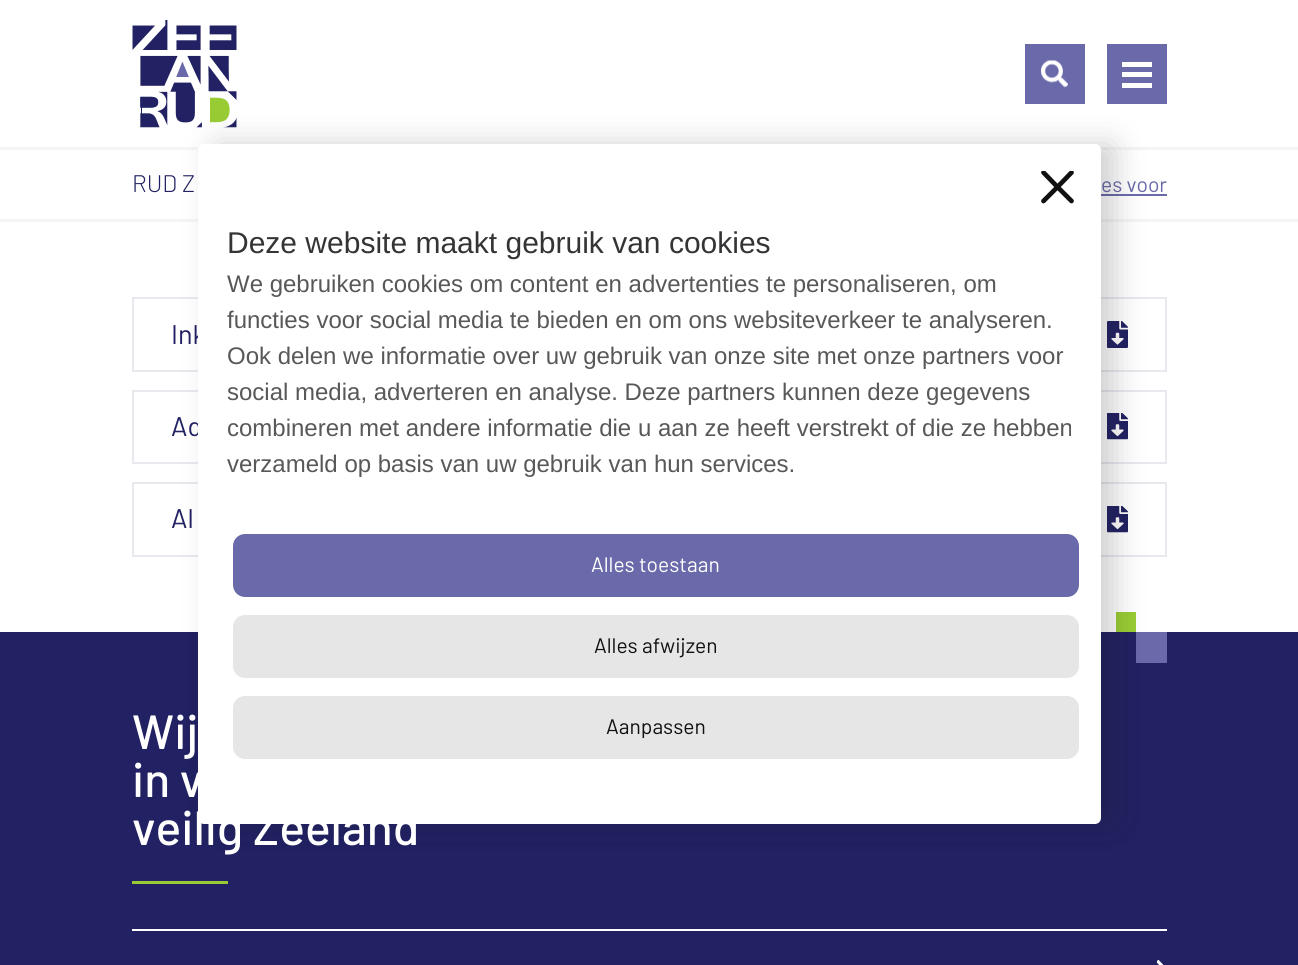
#include <cairo.h>
#include <math.h>
#include <stddef.h>

static cairo_t *ctx;

static void use_color(int r, int g, int b) {
    cairo_set_source_rgb(ctx, r / 255.0, g / 255.0, b / 255.0);
}

static void round_rect(double x, double y, double w, double h, double r) {
    cairo_new_sub_path(ctx);
    cairo_arc(ctx, x + w - r, y + h - r, r, 0, M_PI / 2);
    cairo_arc(ctx, x + r, y + h - r, r, M_PI / 2, M_PI);
    cairo_arc(ctx, x + r, y + r, r, M_PI, 1.5 * M_PI);
    cairo_arc(ctx, x + w - r, y + r, r, 1.5 * M_PI, 2 * M_PI);
    cairo_close_path(ctx);
}

static void shadow(double x, double y, double w, double h, double r, double blur, double alpha) {
    cairo_push_group_with_content(ctx, CAIRO_CONTENT_ALPHA);
    cairo_set_operator(ctx, CAIRO_OPERATOR_SOURCE);
    for (int i = 15; i >= -15 && fmin(w, h) + blur * i / 3 > 0; i -= 2) {
        double e = blur * i / 6;
        cairo_set_source_rgba(ctx, 0, 0, 0, alpha * erfc((i - 1) / 8.5) / 2);
        round_rect(x - e, y - e, w + 2 * e, h + 2 * e, fmax(0, fmin(r + e + blur * .6, fmin(w, h) / 2 + e)));
        cairo_fill(ctx);
    }
    cairo_pattern_t *soft = cairo_pop_group(ctx);
    cairo_mask(ctx, soft);
    cairo_pattern_destroy(soft);
}

static void picture(const char *path, double x, double y, double w, double h) {
    cairo_surface_t *image = cairo_image_surface_create_from_png(path);
    cairo_save(ctx);
    cairo_set_source_surface(ctx, image, x, y);
    cairo_rectangle(ctx, x, y, w, h);
    cairo_fill(ctx);
    cairo_restore(ctx);
    cairo_surface_destroy(image);
}

int main(void) {
    cairo_surface_t *surface = cairo_image_surface_create(CAIRO_FORMAT_RGB24, 1298, 965);
    ctx = cairo_create(surface);
    cairo_font_options_t *options = cairo_font_options_create();
    cairo_font_options_set_hint_metrics(options, CAIRO_HINT_METRICS_OFF);
    cairo_font_options_set_hint_style(options, CAIRO_HINT_STYLE_NONE);
    cairo_set_font_options(ctx, options);
    cairo_set_miter_limit(ctx, 4);
    use_color(255, 255, 255);
    cairo_paint(ctx);
    picture("img1.png", 132, 20, 105, 108);
    use_color(106, 106, 170);
    cairo_rectangle(ctx, 1025, 44, 60, 60);
    cairo_fill(ctx);
    picture("img2.png", 1041, 60, 27, 28);
    cairo_rectangle(ctx, 1107, 44, 60, 60);
    cairo_fill(ctx);
    use_color(255, 255, 255);
    cairo_rectangle(ctx, 1122, 62, 30, 5);
    cairo_fill(ctx);
    cairo_rectangle(ctx, 1122, 72, 30, 5);
    cairo_fill(ctx);
    cairo_rectangle(ctx, 1122, 83, 30, 5);
    cairo_fill(ctx);
    use_color(245, 245, 247);
    cairo_rectangle(ctx, 0, 147, 1298, 3);
    cairo_fill(ctx);
    cairo_rectangle(ctx, 0, 219, 1298, 3);
    cairo_fill(ctx);
    cairo_select_font_face(ctx, "Barlow Light", CAIRO_FONT_SLANT_NORMAL, CAIRO_FONT_WEIGHT_NORMAL);
    cairo_set_font_size(ctx, 24);
    use_color(33, 33, 99);
    cairo_move_to(ctx, 132, 192);
    cairo_show_text(ctx, "RUD Z");
    cairo_select_font_face(ctx, "Barlow", CAIRO_FONT_SLANT_NORMAL, CAIRO_FONT_WEIGHT_NORMAL);
    cairo_set_font_size(ctx, 21);
    use_color(106, 106, 170);
    cairo_move_to(ctx, 1101, 192);
    cairo_show_text(ctx, "es voor");
    cairo_rectangle(ctx, 1101, 194, 66, 2);
    cairo_fill(ctx);
    cairo_rectangle(ctx, 133, 298, 1033, 73);
    use_color(232, 232, 239);
    cairo_stroke(ctx);
    cairo_set_font_size(ctx, 27);
    use_color(33, 33, 99);
    cairo_move_to(ctx, 171, 344);
    cairo_show_text(ctx, "Ink");
    picture("img3.png", 1107, 321, 21, 27);
    cairo_rectangle(ctx, 133, 391, 1033, 72);
    use_color(232, 232, 239);
    cairo_stroke(ctx);
    use_color(33, 33, 99);
    cairo_move_to(ctx, 171, 436);
    cairo_show_text(ctx, "Ad");
    picture("img4.png", 1107, 413, 21, 27);
    cairo_rectangle(ctx, 133, 483, 1033, 73);
    use_color(232, 232, 239);
    cairo_stroke(ctx);
    use_color(33, 33, 99);
    cairo_move_to(ctx, 171, 528);
    cairo_show_text(ctx, "Al");
    picture("img5.png", 1107, 506, 21, 27);
    use_color(153, 204, 51);
    cairo_rectangle(ctx, 1116, 612, 20, 20);
    cairo_fill(ctx);
    use_color(33, 33, 99);
    cairo_rectangle(ctx, 0, 632, 1298, 333);
    cairo_fill(ctx);
    use_color(106, 106, 170);
    cairo_rectangle(ctx, 1136, 632, 31, 31);
    cairo_fill(ctx);
    use_color(26, 23, 27);
    shadow(213, 144, 903, 680, 6, 15, 0.2);
    use_color(255, 255, 255);
    round_rect(198, 144, 903, 680, 6);
    cairo_fill(ctx);
    cairo_save(ctx);
    cairo_rectangle(ctx, 1041, 171, 33, 33);
    cairo_clip(ctx);
    cairo_new_path(ctx);
    cairo_move_to(ctx, 1043.5, 172.5);
    cairo_line_to(ctx, 1057.5, 187);
    cairo_move_to(ctx, 1057.5, 187);
    cairo_line_to(ctx, 1071.5, 201);
    cairo_move_to(ctx, 1057.5, 187);
    cairo_line_to(ctx, 1071.5, 172.5);
    cairo_move_to(ctx, 1057.5, 187);
    cairo_line_to(ctx, 1043.5, 201);
    use_color(17, 17, 17);
    cairo_set_line_width(ctx, 4.7);
    cairo_set_line_cap(ctx, CAIRO_LINE_CAP_ROUND);
    cairo_set_line_join(ctx, CAIRO_LINE_JOIN_ROUND);
    cairo_stroke(ctx);
    cairo_restore(ctx);
    cairo_select_font_face(ctx, "Liberation Sans", CAIRO_FONT_SLANT_NORMAL, CAIRO_FONT_WEIGHT_NORMAL);
    cairo_set_font_size(ctx, 30);
    use_color(52, 52, 54);
    cairo_move_to(ctx, 227, 253);
    cairo_show_text(ctx, "Deze website maakt gebruik van cookies");
    cairo_set_font_size(ctx, 24);
    use_color(88, 88, 90);
    cairo_move_to(ctx, 227, 292);
    cairo_show_text(ctx, "We gebruiken cookies om content en advertenties te personaliseren, om");
    cairo_move_to(ctx, 227, 328);
    cairo_show_text(ctx, "functies voor social media te bieden en om ons websiteverkeer te analyseren.");
    cairo_move_to(ctx, 227, 364);
    cairo_show_text(ctx, "Ook delen we informatie over uw gebruik van onze site met onze partners voor");
    cairo_move_to(ctx, 227, 400);
    cairo_show_text(ctx, "social media, adverteren en analyse. Deze partners kunnen deze gegevens");
    cairo_move_to(ctx, 227, 436);
    cairo_show_text(ctx, "combineren met andere informatie die u aan ze heeft verstrekt of die ze hebben");
    cairo_move_to(ctx, 227, 472);
    cairo_show_text(ctx, "verzameld op basis van uw gebruik van hun services.");
    use_color(106, 106, 170);
    round_rect(233, 534, 846, 63, 12);
    cairo_fill(ctx);
    cairo_select_font_face(ctx, "Barlow", CAIRO_FONT_SLANT_NORMAL, CAIRO_FONT_WEIGHT_NORMAL);
    cairo_set_font_size(ctx, 21);
    use_color(255, 255, 255);
    cairo_move_to(ctx, 591, 572);
    cairo_show_text(ctx, "Alles toestaan");
    use_color(230, 230, 230);
    round_rect(233, 615, 846, 63, 12);
    cairo_fill(ctx);
    use_color(17, 17, 17);
    cairo_move_to(ctx, 594, 653);
    cairo_show_text(ctx, "Alles afwijzen");
    use_color(230, 230, 230);
    round_rect(233, 696, 846, 63, 12);
    cairo_fill(ctx);
    use_color(17, 17, 17);
    cairo_move_to(ctx, 606, 734);
    cairo_show_text(ctx, "Aanpassen");
    cairo_select_font_face(ctx, "Barlow Medium", CAIRO_FONT_SLANT_NORMAL, CAIRO_FONT_WEIGHT_NORMAL);
    cairo_set_font_size(ctx, 48);
    use_color(255, 255, 255);
    cairo_move_to(ctx, 132, 749);
    cairo_show_text(ctx, "Wij");
    cairo_move_to(ctx, 132, 797);
    cairo_show_text(ctx, "in v");
    cairo_move_to(ctx, 132, 845);
    cairo_show_text(ctx, "veilig Zeeland");
    use_color(153, 204, 51);
    cairo_rectangle(ctx, 132, 881, 96, 3);
    cairo_fill(ctx);
    use_color(255, 255, 255);
    cairo_rectangle(ctx, 132, 929, 1035, 2);
    cairo_fill(ctx);
    picture("img6.png", 1157, 960, 7, 5);
    cairo_surface_write_to_png(surface, "result.png");
    cairo_font_options_destroy(options);
    cairo_destroy(ctx);
    cairo_surface_destroy(surface);
    return 0;
}
